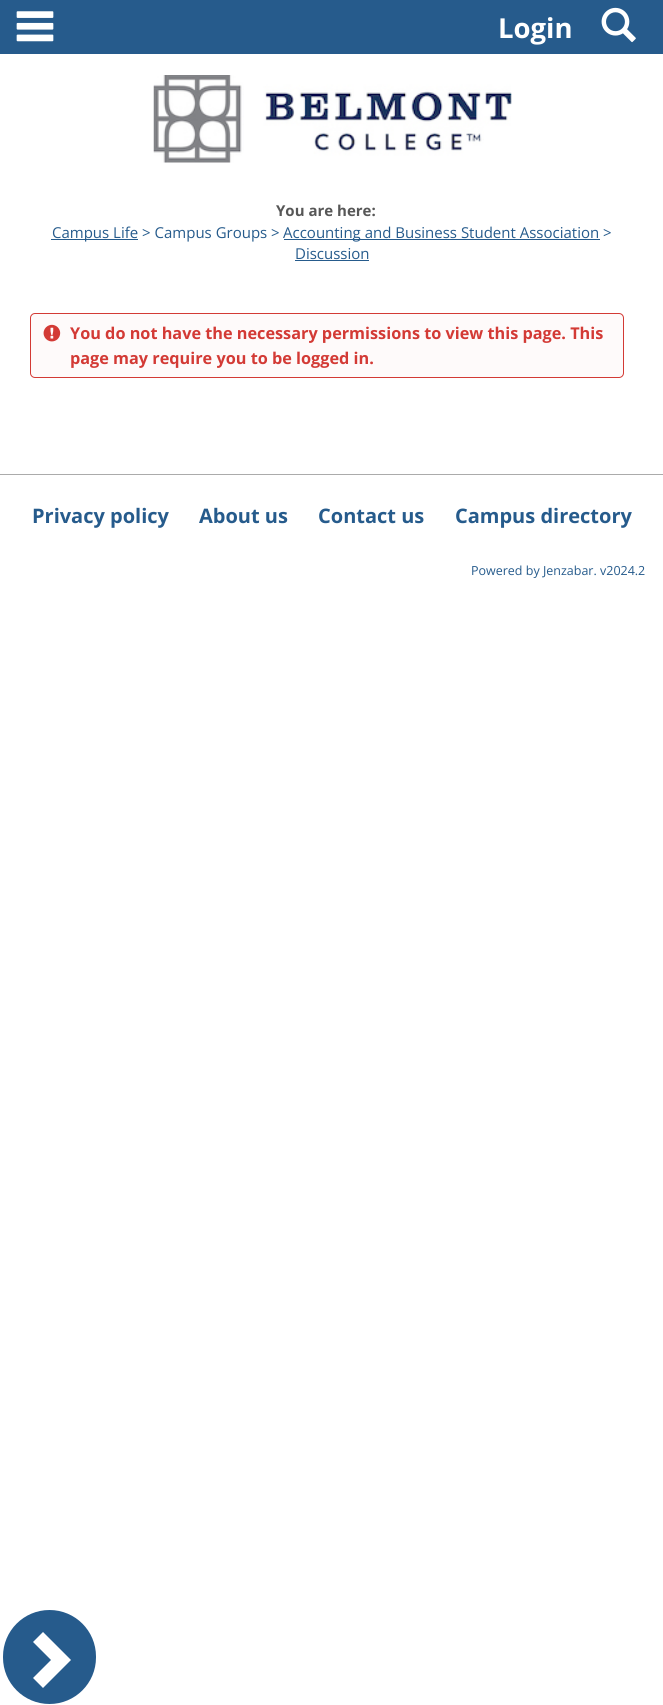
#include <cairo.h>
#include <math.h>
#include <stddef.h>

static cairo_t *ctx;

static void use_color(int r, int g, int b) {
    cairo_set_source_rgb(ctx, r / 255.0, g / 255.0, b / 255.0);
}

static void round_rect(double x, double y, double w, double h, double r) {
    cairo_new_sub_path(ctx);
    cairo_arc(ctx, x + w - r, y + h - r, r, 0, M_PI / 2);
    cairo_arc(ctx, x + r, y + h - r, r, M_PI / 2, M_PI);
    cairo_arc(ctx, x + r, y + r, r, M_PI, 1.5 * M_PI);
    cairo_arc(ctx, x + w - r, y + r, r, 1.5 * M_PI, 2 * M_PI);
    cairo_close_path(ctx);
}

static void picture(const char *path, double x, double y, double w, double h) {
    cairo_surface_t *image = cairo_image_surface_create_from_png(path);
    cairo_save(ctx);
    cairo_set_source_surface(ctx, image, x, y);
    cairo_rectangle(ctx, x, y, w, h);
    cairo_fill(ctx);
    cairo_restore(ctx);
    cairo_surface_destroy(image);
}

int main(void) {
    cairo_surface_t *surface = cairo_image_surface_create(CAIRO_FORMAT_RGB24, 663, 1705);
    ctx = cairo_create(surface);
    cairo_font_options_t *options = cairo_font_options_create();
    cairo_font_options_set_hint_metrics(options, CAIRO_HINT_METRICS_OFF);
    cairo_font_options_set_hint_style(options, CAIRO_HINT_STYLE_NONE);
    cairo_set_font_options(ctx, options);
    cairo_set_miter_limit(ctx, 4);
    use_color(255, 255, 255);
    cairo_paint(ctx);
    use_color(38, 91, 140);
    cairo_rectangle(ctx, 0, 0, 663, 54);
    cairo_fill(ctx);
    picture("img1.png", 16, 11, 38, 31);
    cairo_select_font_face(ctx, "Open Sans", CAIRO_FONT_SLANT_NORMAL, CAIRO_FONT_WEIGHT_BOLD);
    cairo_set_font_size(ctx, 27.5);
    use_color(255, 255, 255);
    cairo_move_to(ctx, 498, 38);
    cairo_show_text(ctx, "Login");
    picture("img2.png", 601, 7, 35, 36);
    picture("img3.png", 153, 75, 359, 88);
    cairo_set_font_size(ctx, 15);
    use_color(87, 87, 87);
    cairo_move_to(ctx, 276, 216);
    cairo_show_text(ctx, "You are here:");
    use_color(38, 91, 140);
    cairo_rectangle(ctx, 51, 239, 87, 1);
    cairo_fill(ctx);
    cairo_select_font_face(ctx, "Open Sans", CAIRO_FONT_SLANT_NORMAL, CAIRO_FONT_WEIGHT_NORMAL);
    cairo_move_to(ctx, 52, 238);
    cairo_show_text(ctx, "Campus Life > Campus Groups >");
    cairo_rectangle(ctx, 284, 239, 316, 1);
    cairo_fill(ctx);
    cairo_move_to(ctx, 283, 238);
    cairo_show_text(ctx, "Accounting and Business Student Association >");
    cairo_move_to(ctx, 295, 259);
    cairo_show_text(ctx, "Discussion");
    cairo_rectangle(ctx, 295, 260, 74, 1);
    cairo_fill(ctx);
    use_color(254, 250, 250);
    round_rect(30.5, 313.5, 593, 64, 4.5);
    cairo_fill_preserve(ctx);
    use_color(211, 58, 53);
    cairo_set_line_width(ctx, 1);
    cairo_stroke(ctx);
    picture("img4.png", 43, 324, 18, 18);
    cairo_select_font_face(ctx, "Open Sans", CAIRO_FONT_SLANT_NORMAL, CAIRO_FONT_WEIGHT_BOLD);
    cairo_set_font_size(ctx, 16.25);
    cairo_move_to(ctx, 70, 339);
    cairo_show_text(ctx, "You do not have the necessary permissions to view this page. This");
    cairo_move_to(ctx, 70, 364);
    cairo_show_text(ctx, "page may require you to be logged in.");
    use_color(38, 91, 140);
    round_rect(3, 1610, 93, 94, 46.5);
    cairo_fill(ctx);
    use_color(255, 255, 255);
    cairo_new_path(ctx);
    cairo_move_to(ctx, 43, 1688);
    cairo_line_to(ctx, 33, 1678);
    cairo_line_to(ctx, 51, 1660);
    cairo_line_to(ctx, 33, 1642);
    cairo_line_to(ctx, 43, 1632);
    cairo_line_to(ctx, 71, 1660);
    cairo_close_path(ctx);
    cairo_fill(ctx);
    use_color(171, 171, 171);
    cairo_rectangle(ctx, 0, 474, 663, 1);
    cairo_fill(ctx);
    cairo_set_font_size(ctx, 20);
    use_color(38, 91, 140);
    cairo_move_to(ctx, 32, 523);
    cairo_show_text(ctx, "Privacy policy");
    cairo_move_to(ctx, 199, 523);
    cairo_show_text(ctx, "About us");
    cairo_move_to(ctx, 318, 523);
    cairo_show_text(ctx, "Contact us");
    cairo_move_to(ctx, 455, 523);
    cairo_show_text(ctx, "Campus directory");
    cairo_select_font_face(ctx, "Open Sans", CAIRO_FONT_SLANT_NORMAL, CAIRO_FONT_WEIGHT_NORMAL);
    cairo_set_font_size(ctx, 12.5);
    cairo_move_to(ctx, 471, 575);
    cairo_show_text(ctx, "Powered by Jenzabar. v2024.2");
    cairo_surface_write_to_png(surface, "result.png");
    cairo_font_options_destroy(options);
    cairo_destroy(ctx);
    cairo_surface_destroy(surface);
    return 0;
}
